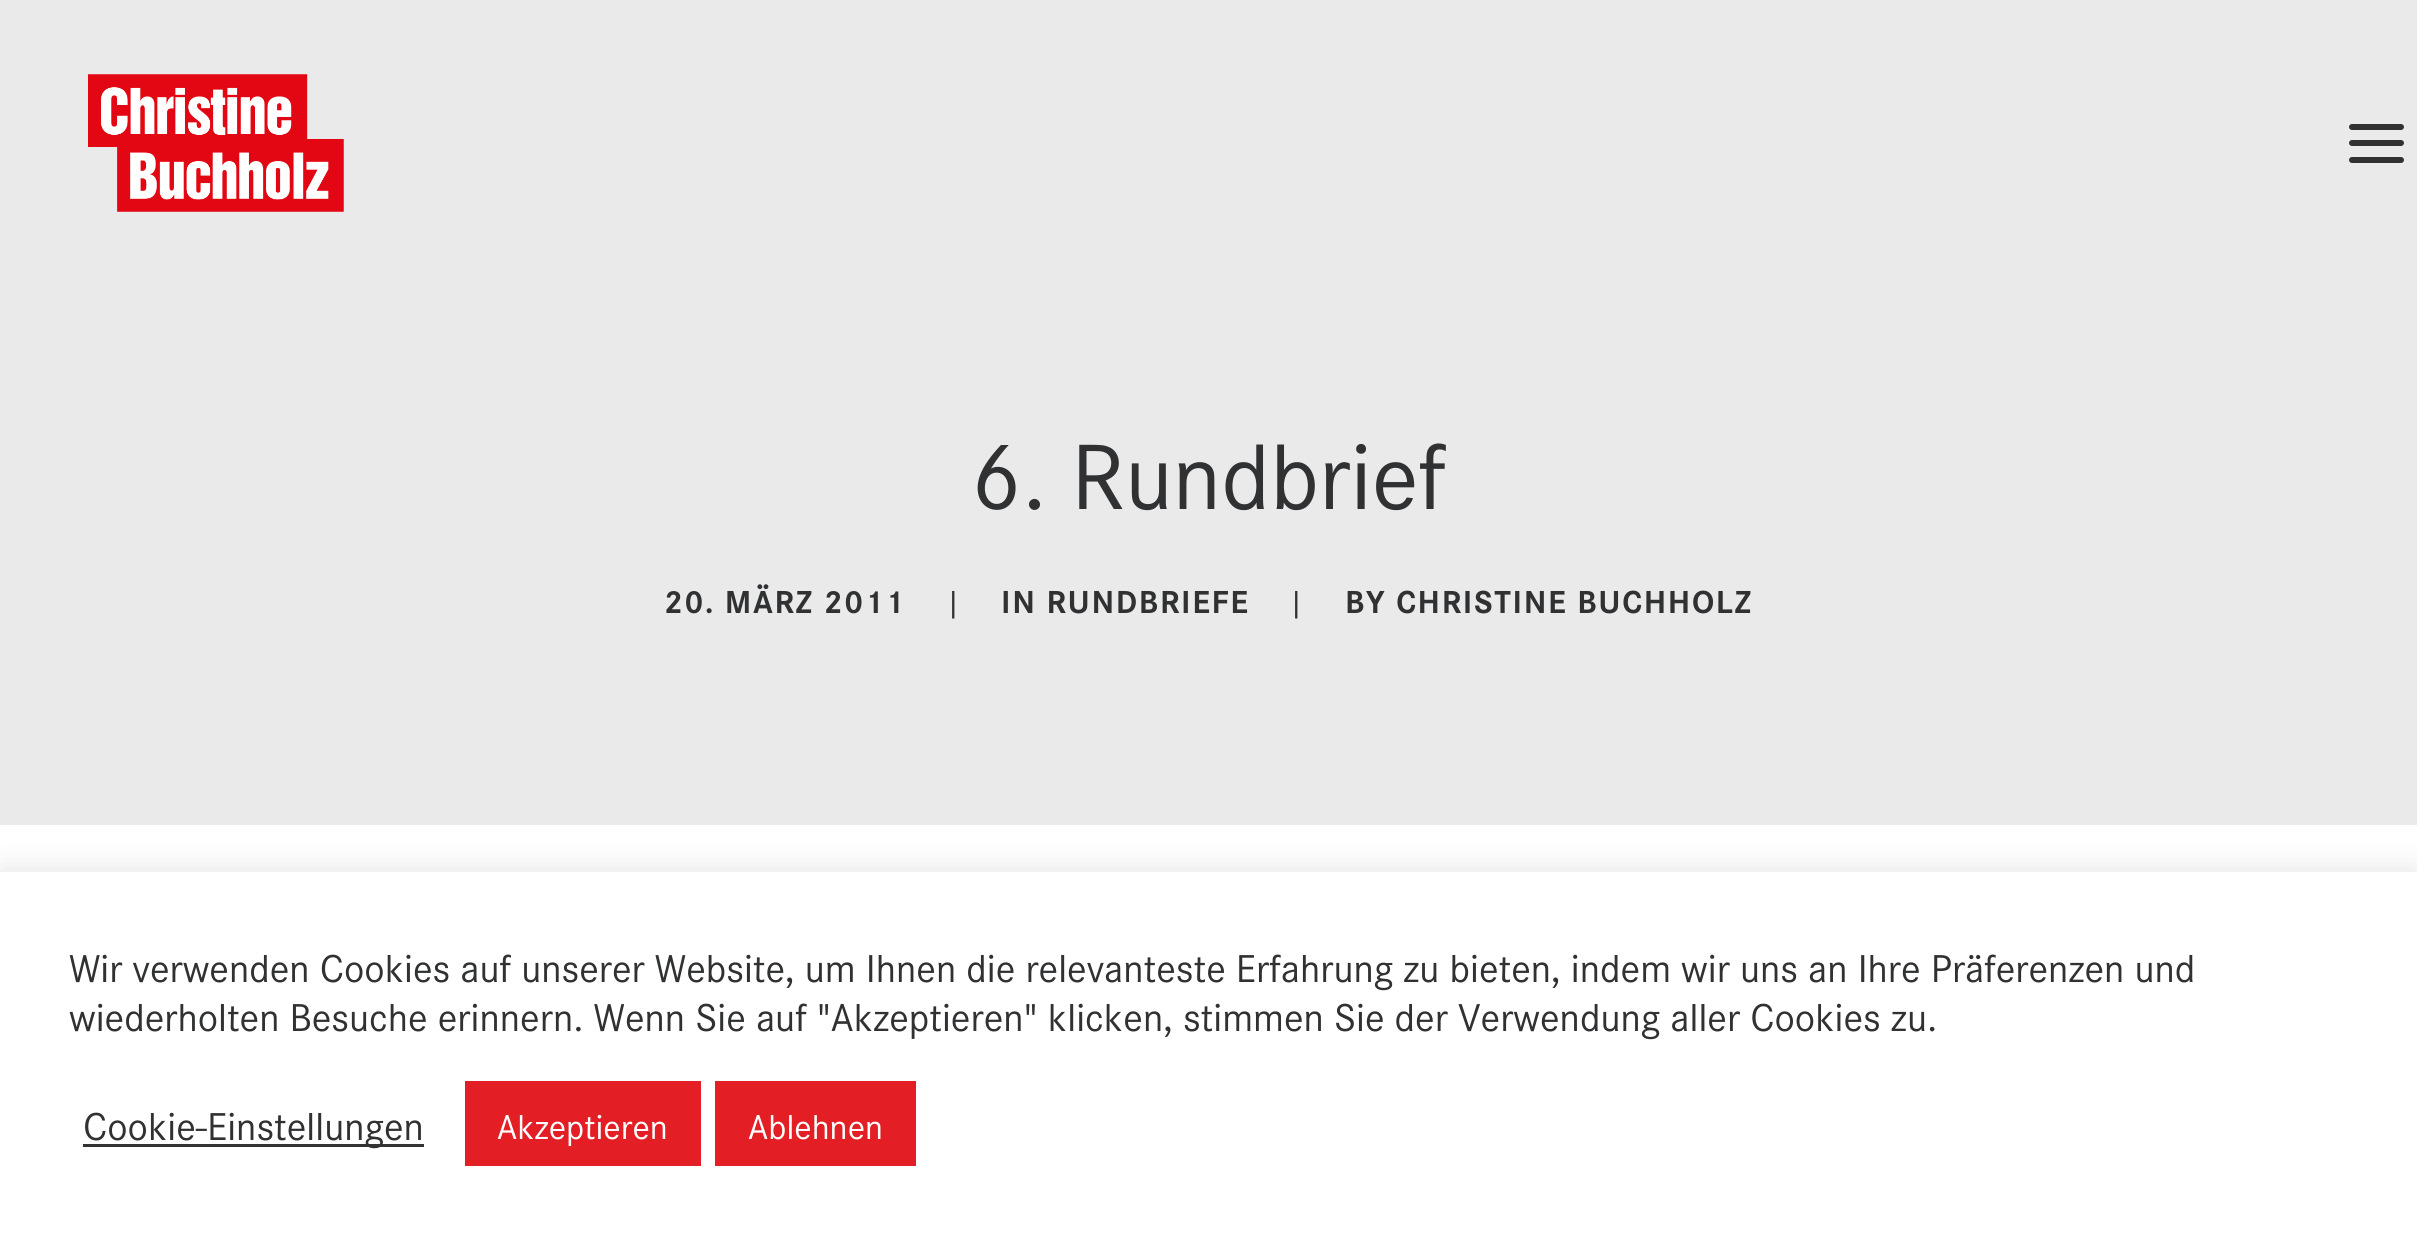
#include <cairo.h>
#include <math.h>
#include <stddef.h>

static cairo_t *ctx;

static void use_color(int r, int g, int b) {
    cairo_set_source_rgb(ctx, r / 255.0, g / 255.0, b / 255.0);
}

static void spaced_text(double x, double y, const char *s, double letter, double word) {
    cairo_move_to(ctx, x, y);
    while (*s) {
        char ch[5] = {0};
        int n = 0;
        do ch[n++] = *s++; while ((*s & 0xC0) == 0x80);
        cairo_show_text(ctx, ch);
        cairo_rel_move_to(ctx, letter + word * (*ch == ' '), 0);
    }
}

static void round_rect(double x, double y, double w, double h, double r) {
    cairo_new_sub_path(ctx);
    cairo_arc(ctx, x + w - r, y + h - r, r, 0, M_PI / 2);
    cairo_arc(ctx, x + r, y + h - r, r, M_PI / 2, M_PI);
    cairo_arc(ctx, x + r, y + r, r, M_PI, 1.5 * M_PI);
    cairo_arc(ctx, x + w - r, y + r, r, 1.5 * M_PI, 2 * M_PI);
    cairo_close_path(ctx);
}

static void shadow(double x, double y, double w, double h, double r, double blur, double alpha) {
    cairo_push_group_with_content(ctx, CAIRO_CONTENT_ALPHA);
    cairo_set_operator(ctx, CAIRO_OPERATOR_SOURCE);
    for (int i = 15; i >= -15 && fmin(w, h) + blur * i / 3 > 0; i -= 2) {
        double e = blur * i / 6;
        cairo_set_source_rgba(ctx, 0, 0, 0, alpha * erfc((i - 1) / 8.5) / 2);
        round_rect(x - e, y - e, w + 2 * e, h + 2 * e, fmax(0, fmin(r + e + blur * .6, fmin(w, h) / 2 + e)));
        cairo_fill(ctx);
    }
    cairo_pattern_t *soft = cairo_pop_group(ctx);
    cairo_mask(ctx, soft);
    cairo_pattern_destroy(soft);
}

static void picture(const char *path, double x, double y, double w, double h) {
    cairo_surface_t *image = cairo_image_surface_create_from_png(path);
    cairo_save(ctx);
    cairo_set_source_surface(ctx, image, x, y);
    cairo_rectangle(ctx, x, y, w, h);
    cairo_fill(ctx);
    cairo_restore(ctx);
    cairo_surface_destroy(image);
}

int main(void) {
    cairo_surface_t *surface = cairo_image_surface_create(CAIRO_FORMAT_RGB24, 2417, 1247);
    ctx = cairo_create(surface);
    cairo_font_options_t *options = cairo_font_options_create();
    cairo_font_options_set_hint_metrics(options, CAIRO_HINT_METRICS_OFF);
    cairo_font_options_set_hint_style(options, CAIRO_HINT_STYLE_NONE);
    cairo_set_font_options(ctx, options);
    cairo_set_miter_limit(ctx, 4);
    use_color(234, 234, 234);
    cairo_paint(ctx);
    picture("img1.png", 88, 74, 256, 138);
    use_color(48, 49, 51);
    round_rect(2349, 140, 55, 6, 3);
    cairo_fill(ctx);
    round_rect(2349, 124, 55, 6, 3);
    cairo_fill(ctx);
    round_rect(2349, 157, 55, 6, 3);
    cairo_fill(ctx);
    cairo_select_font_face(ctx, "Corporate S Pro", CAIRO_FONT_SLANT_NORMAL, CAIRO_FONT_WEIGHT_NORMAL);
    cairo_set_font_size(ctx, 96.25);
    cairo_move_to(ctx, 971, 509);
    cairo_show_text(ctx, "6. Rundbrief");
    cairo_select_font_face(ctx, "Corporate S Pro", CAIRO_FONT_SLANT_NORMAL, CAIRO_FONT_WEIGHT_BOLD);
    cairo_set_font_size(ctx, 33);
    spaced_text(664, 613, "20. MÄRZ 2011", 1.65, 0);
    cairo_select_font_face(ctx, "Corporate S Pro", CAIRO_FONT_SLANT_NORMAL, CAIRO_FONT_WEIGHT_NORMAL);
    spaced_text(945, 613, "|", 1.65, 0);
    cairo_select_font_face(ctx, "Corporate S Pro", CAIRO_FONT_SLANT_NORMAL, CAIRO_FONT_WEIGHT_BOLD);
    spaced_text(1001, 613, "IN RUNDBRIEFE", 1.65, 0);
    cairo_select_font_face(ctx, "Corporate S Pro", CAIRO_FONT_SLANT_NORMAL, CAIRO_FONT_WEIGHT_NORMAL);
    spaced_text(1288, 613, "|", 1.65, 0);
    cairo_select_font_face(ctx, "Corporate S Pro", CAIRO_FONT_SLANT_NORMAL, CAIRO_FONT_WEIGHT_BOLD);
    spaced_text(1345, 613, "BY CHRISTINE BUCHHOLZ", 1.65, 0);
    use_color(255, 255, 255);
    cairo_rectangle(ctx, 0, 825, 2417, 47);
    cairo_fill(ctx);
    use_color(172, 171, 171);
    shadow(0, 869, 2417, 377, 0, 14, 0.3);
    use_color(255, 255, 255);
    cairo_rectangle(ctx, 0, 872, 2417, 375);
    cairo_fill(ctx);
    cairo_select_font_face(ctx, "Corporate S Pro", CAIRO_FONT_SLANT_NORMAL, CAIRO_FONT_WEIGHT_NORMAL);
    cairo_set_font_size(ctx, 40.33);
    use_color(48, 49, 51);
    cairo_move_to(ctx, 69, 982);
    cairo_show_text(ctx, "Wir verwenden Cookies auf unserer Website, um Ihnen die relevanteste Erfahrung zu bieten, indem wir uns an Ihre Präferenzen und");
    cairo_move_to(ctx, 69, 1031);
    cairo_show_text(ctx, "wiederholten Besuche erinnern. Wenn Sie auf \"Akzeptieren\" klicken, stimmen Sie der Verwendung aller Cookies zu.");
    use_color(51, 51, 51);
    cairo_rectangle(ctx, 83, 1144, 341, 3);
    cairo_fill(ctx);
    use_color(48, 49, 51);
    cairo_move_to(ctx, 83, 1140);
    cairo_show_text(ctx, "Cookie-Einstellungen");
    use_color(227, 30, 37);
    cairo_rectangle(ctx, 465, 1081, 236, 85);
    cairo_fill(ctx);
    cairo_set_font_size(ctx, 35.75);
    use_color(255, 255, 255);
    cairo_move_to(ctx, 497, 1139);
    cairo_show_text(ctx, "Akzeptieren");
    use_color(227, 30, 37);
    cairo_rectangle(ctx, 715, 1081, 201, 85);
    cairo_fill(ctx);
    use_color(255, 255, 255);
    cairo_move_to(ctx, 748, 1139);
    cairo_show_text(ctx, "Ablehnen");
    cairo_surface_write_to_png(surface, "result.png");
    cairo_font_options_destroy(options);
    cairo_destroy(ctx);
    cairo_surface_destroy(surface);
    return 0;
}
